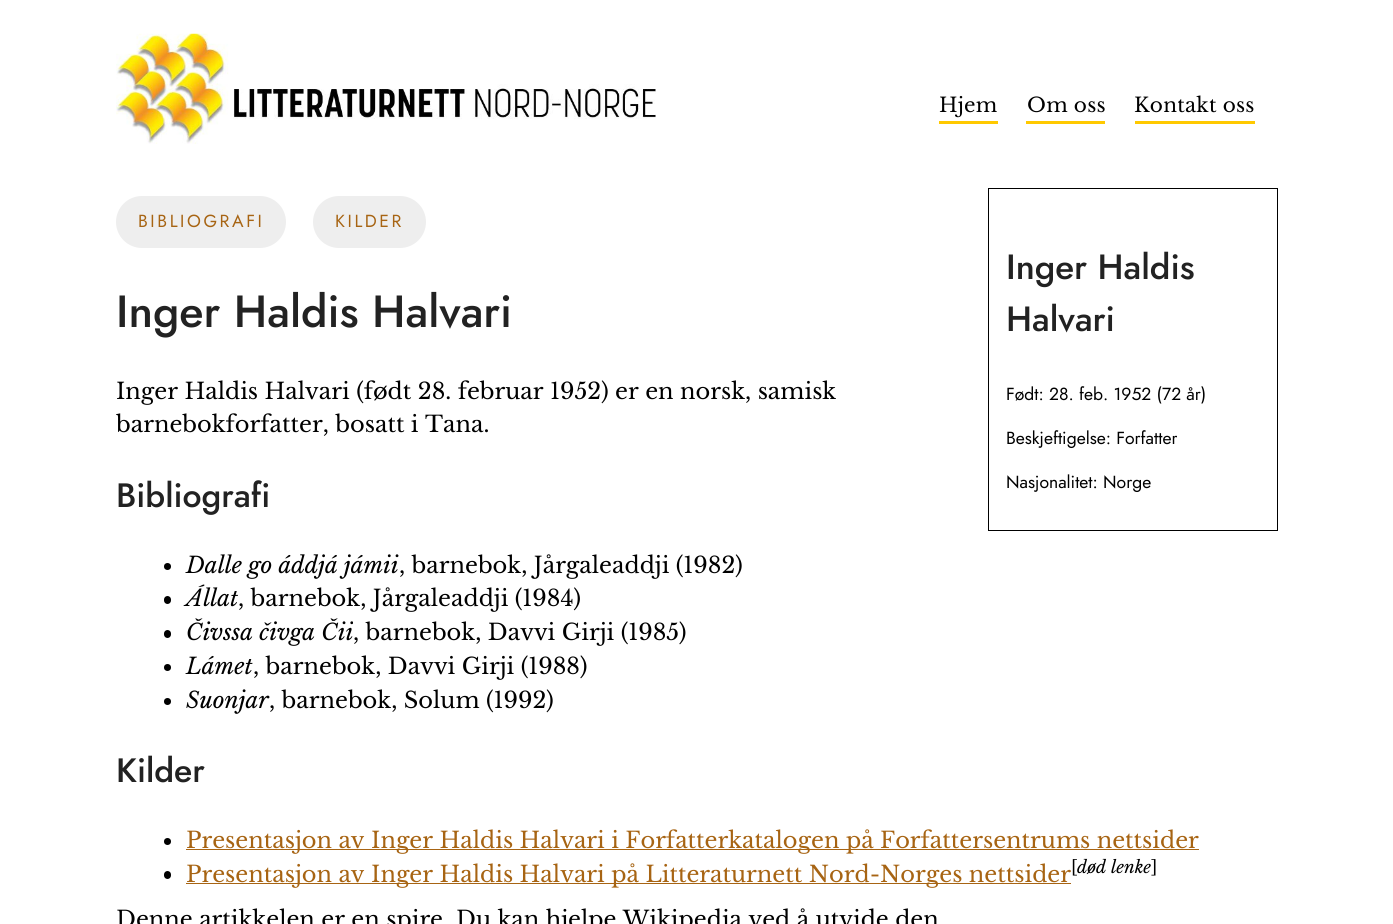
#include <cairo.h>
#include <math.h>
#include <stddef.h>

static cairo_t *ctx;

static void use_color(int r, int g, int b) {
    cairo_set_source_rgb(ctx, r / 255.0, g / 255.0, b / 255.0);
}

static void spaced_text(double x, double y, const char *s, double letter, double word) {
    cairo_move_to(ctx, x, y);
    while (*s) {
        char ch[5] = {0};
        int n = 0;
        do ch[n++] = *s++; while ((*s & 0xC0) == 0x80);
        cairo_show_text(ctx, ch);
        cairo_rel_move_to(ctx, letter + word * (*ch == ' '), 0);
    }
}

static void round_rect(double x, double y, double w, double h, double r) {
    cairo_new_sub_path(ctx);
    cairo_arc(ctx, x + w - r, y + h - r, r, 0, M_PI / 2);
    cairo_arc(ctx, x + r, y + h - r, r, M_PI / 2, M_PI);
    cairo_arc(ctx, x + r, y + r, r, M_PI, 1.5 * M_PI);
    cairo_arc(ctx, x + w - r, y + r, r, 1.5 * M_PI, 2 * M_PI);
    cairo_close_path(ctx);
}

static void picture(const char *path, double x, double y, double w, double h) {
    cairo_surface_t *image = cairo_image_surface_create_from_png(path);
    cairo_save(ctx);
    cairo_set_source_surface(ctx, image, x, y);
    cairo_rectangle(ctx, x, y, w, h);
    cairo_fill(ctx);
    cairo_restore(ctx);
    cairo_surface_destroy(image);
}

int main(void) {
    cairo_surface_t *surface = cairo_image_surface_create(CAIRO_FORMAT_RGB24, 1393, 924);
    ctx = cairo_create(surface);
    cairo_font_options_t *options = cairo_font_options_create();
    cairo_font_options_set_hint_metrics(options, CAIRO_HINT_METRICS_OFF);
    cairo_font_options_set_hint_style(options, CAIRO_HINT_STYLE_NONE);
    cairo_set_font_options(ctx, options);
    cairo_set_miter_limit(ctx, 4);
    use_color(255, 255, 255);
    cairo_paint(ctx);
    picture("img1.png", 116, 33, 540, 111);
    cairo_select_font_face(ctx, "Libre Baskerville", CAIRO_FONT_SLANT_NORMAL, CAIRO_FONT_WEIGHT_NORMAL);
    cairo_set_font_size(ctx, 20);
    use_color(0, 0, 0);
    spaced_text(939, 112, "Hjem", 0.25, 0);
    use_color(255, 201, 0);
    cairo_rectangle(ctx, 939, 121, 59, 3);
    cairo_fill(ctx);
    use_color(0, 0, 0);
    spaced_text(1027, 112, "Om oss", 0.25, 0);
    use_color(255, 201, 0);
    cairo_rectangle(ctx, 1026, 121, 79, 3);
    cairo_fill(ctx);
    use_color(0, 0, 0);
    spaced_text(1134, 112, "Kontakt oss", 0.25, 0);
    use_color(255, 201, 0);
    cairo_rectangle(ctx, 1135, 121, 120, 3);
    cairo_fill(ctx);
    use_color(238, 238, 238);
    round_rect(116, 196, 170, 52, 26);
    cairo_fill(ctx);
    cairo_select_font_face(ctx, "Jost", CAIRO_FONT_SLANT_NORMAL, CAIRO_FONT_WEIGHT_NORMAL);
    cairo_set_font_size(ctx, 17.5);
    use_color(167, 100, 19);
    spaced_text(138, 227, "BIBLIOGRAFI", 2.6, 0);
    use_color(238, 238, 238);
    round_rect(313, 196, 113, 52, 26);
    cairo_fill(ctx);
    use_color(167, 100, 19);
    spaced_text(335, 227, "KILDER", 2.6, 0);
    cairo_rectangle(ctx, 988.5, 188.5, 289, 342);
    use_color(0, 0, 0);
    cairo_set_line_width(ctx, 1);
    cairo_stroke(ctx);
    cairo_select_font_face(ctx, "Jost Medium", CAIRO_FONT_SLANT_NORMAL, CAIRO_FONT_WEIGHT_NORMAL);
    cairo_set_font_size(ctx, 35);
    use_color(34, 34, 34);
    cairo_move_to(ctx, 1006, 279);
    cairo_show_text(ctx, "Inger Haldis");
    cairo_move_to(ctx, 1006, 331);
    cairo_show_text(ctx, "Halvari");
    cairo_select_font_face(ctx, "Jost", CAIRO_FONT_SLANT_NORMAL, CAIRO_FONT_WEIGHT_NORMAL);
    cairo_set_font_size(ctx, 17.5);
    use_color(0, 0, 0);
    cairo_move_to(ctx, 1006, 400);
    cairo_show_text(ctx, "Født: 28. feb. 1952 (72 år)");
    cairo_move_to(ctx, 1006, 444);
    cairo_show_text(ctx, "Beskjeftigelse: Forfatter");
    cairo_move_to(ctx, 1006, 488);
    cairo_show_text(ctx, "Nasjonalitet: Norge");
    cairo_select_font_face(ctx, "Jost Medium", CAIRO_FONT_SLANT_NORMAL, CAIRO_FONT_WEIGHT_NORMAL);
    cairo_set_font_size(ctx, 45);
    use_color(34, 34, 34);
    cairo_move_to(ctx, 116, 327);
    cairo_show_text(ctx, "Inger Haldis Halvari");
    cairo_select_font_face(ctx, "Libre Baskerville", CAIRO_FONT_SLANT_NORMAL, CAIRO_FONT_WEIGHT_NORMAL);
    cairo_set_font_size(ctx, 22.5);
    use_color(0, 0, 0);
    cairo_move_to(ctx, 116, 399);
    cairo_show_text(ctx, "Inger Haldis Halvari (født 28. februar 1952) er en norsk, samisk");
    cairo_move_to(ctx, 116, 432);
    cairo_show_text(ctx, "barnebokforfatter, bosatt i Tana.");
    cairo_select_font_face(ctx, "Jost Medium", CAIRO_FONT_SLANT_NORMAL, CAIRO_FONT_WEIGHT_NORMAL);
    cairo_set_font_size(ctx, 33.75);
    use_color(34, 34, 34);
    cairo_move_to(ctx, 116, 507);
    cairo_show_text(ctx, "Bibliografi");
    use_color(0, 0, 0);
    cairo_new_path(ctx);
    cairo_arc(ctx, 167.5, 566.5, 3.5, 0, 2 * M_PI);
    cairo_fill(ctx);
    cairo_select_font_face(ctx, "Libre Baskerville", CAIRO_FONT_SLANT_ITALIC, CAIRO_FONT_WEIGHT_NORMAL);
    cairo_set_font_size(ctx, 22.5);
    cairo_move_to(ctx, 186, 573);
    cairo_show_text(ctx, "Dalle go áddjá jámii");
    cairo_select_font_face(ctx, "Libre Baskerville", CAIRO_FONT_SLANT_NORMAL, CAIRO_FONT_WEIGHT_NORMAL);
    cairo_move_to(ctx, 399, 573);
    cairo_show_text(ctx, ", barnebok, Jårgaleaddji (1982)");
    round_rect(164, 596, 7, 8, 3.5);
    cairo_fill(ctx);
    cairo_select_font_face(ctx, "Libre Baskerville", CAIRO_FONT_SLANT_ITALIC, CAIRO_FONT_WEIGHT_NORMAL);
    cairo_move_to(ctx, 186, 606);
    cairo_show_text(ctx, "Állat");
    cairo_select_font_face(ctx, "Libre Baskerville", CAIRO_FONT_SLANT_NORMAL, CAIRO_FONT_WEIGHT_NORMAL);
    cairo_move_to(ctx, 238, 606);
    cairo_show_text(ctx, ", barnebok, Jårgaleaddji (1984)");
    round_rect(164, 630, 7, 8, 3.5);
    cairo_fill(ctx);
    cairo_select_font_face(ctx, "Libre Baskerville", CAIRO_FONT_SLANT_ITALIC, CAIRO_FONT_WEIGHT_NORMAL);
    cairo_move_to(ctx, 186, 640);
    cairo_show_text(ctx, "Čivssa čivga Čii");
    cairo_select_font_face(ctx, "Libre Baskerville", CAIRO_FONT_SLANT_NORMAL, CAIRO_FONT_WEIGHT_NORMAL);
    cairo_move_to(ctx, 353, 640);
    cairo_show_text(ctx, ", barnebok, Davvi Girji (1985)");
    cairo_new_path(ctx);
    cairo_arc(ctx, 167.5, 667.5, 3.5, 0, 2 * M_PI);
    cairo_fill(ctx);
    cairo_select_font_face(ctx, "Libre Baskerville", CAIRO_FONT_SLANT_ITALIC, CAIRO_FONT_WEIGHT_NORMAL);
    cairo_move_to(ctx, 186, 674);
    cairo_show_text(ctx, "Lámet");
    cairo_select_font_face(ctx, "Libre Baskerville", CAIRO_FONT_SLANT_NORMAL, CAIRO_FONT_WEIGHT_NORMAL);
    cairo_move_to(ctx, 253, 674);
    cairo_show_text(ctx, ", barnebok, Davvi Girji (1988)");
    cairo_new_path(ctx);
    cairo_arc(ctx, 167.5, 701.5, 3.5, 0, 2 * M_PI);
    cairo_fill(ctx);
    cairo_select_font_face(ctx, "Libre Baskerville", CAIRO_FONT_SLANT_ITALIC, CAIRO_FONT_WEIGHT_NORMAL);
    cairo_move_to(ctx, 186, 708);
    cairo_show_text(ctx, "Suonjar");
    cairo_select_font_face(ctx, "Libre Baskerville", CAIRO_FONT_SLANT_NORMAL, CAIRO_FONT_WEIGHT_NORMAL);
    cairo_move_to(ctx, 269, 708);
    cairo_show_text(ctx, ", barnebok, Solum (1992)");
    cairo_select_font_face(ctx, "Jost Medium", CAIRO_FONT_SLANT_NORMAL, CAIRO_FONT_WEIGHT_NORMAL);
    cairo_set_font_size(ctx, 33.75);
    use_color(34, 34, 34);
    cairo_move_to(ctx, 116, 782);
    cairo_show_text(ctx, "Kilder");
    use_color(0, 0, 0);
    cairo_new_path(ctx);
    cairo_arc(ctx, 167.5, 841.5, 3.5, 0, 2 * M_PI);
    cairo_fill(ctx);
    use_color(167, 100, 19);
    cairo_rectangle(ctx, 186, 849, 1013, 1);
    cairo_fill(ctx);
    cairo_select_font_face(ctx, "Libre Baskerville", CAIRO_FONT_SLANT_NORMAL, CAIRO_FONT_WEIGHT_NORMAL);
    cairo_set_font_size(ctx, 22.5);
    cairo_move_to(ctx, 186, 848);
    cairo_show_text(ctx, "Presentasjon av Inger Haldis Halvari i Forfatterkatalogen på Forfattersentrums nettsider");
    use_color(0, 0, 0);
    round_rect(164, 871, 7, 8, 3.5);
    cairo_fill(ctx);
    use_color(167, 100, 19);
    cairo_rectangle(ctx, 186, 883, 885, 1);
    cairo_fill(ctx);
    cairo_move_to(ctx, 186, 882);
    cairo_show_text(ctx, "Presentasjon av Inger Haldis Halvari på Litteraturnett Nord-Norges nettsider");
    cairo_set_font_size(ctx, 17);
    use_color(0, 0, 0);
    cairo_move_to(ctx, 1071, 873);
    cairo_show_text(ctx, "[");
    cairo_select_font_face(ctx, "Libre Baskerville", CAIRO_FONT_SLANT_ITALIC, CAIRO_FONT_WEIGHT_NORMAL);
    cairo_move_to(ctx, 1077, 873);
    cairo_show_text(ctx, "død lenke");
    cairo_select_font_face(ctx, "Libre Baskerville", CAIRO_FONT_SLANT_NORMAL, CAIRO_FONT_WEIGHT_NORMAL);
    cairo_move_to(ctx, 1151, 873);
    cairo_show_text(ctx, "]");
    cairo_set_font_size(ctx, 22.5);
    cairo_move_to(ctx, 116, 927);
    cairo_show_text(ctx, "Denne artikkelen er en spire");
    cairo_move_to(ctx, 456, 927);
    cairo_show_text(ctx, "Du kan hjelpe Wikipedia ved å utvide den");
    cairo_surface_write_to_png(surface, "result.png");
    cairo_font_options_destroy(options);
    cairo_destroy(ctx);
    cairo_surface_destroy(surface);
    return 0;
}
